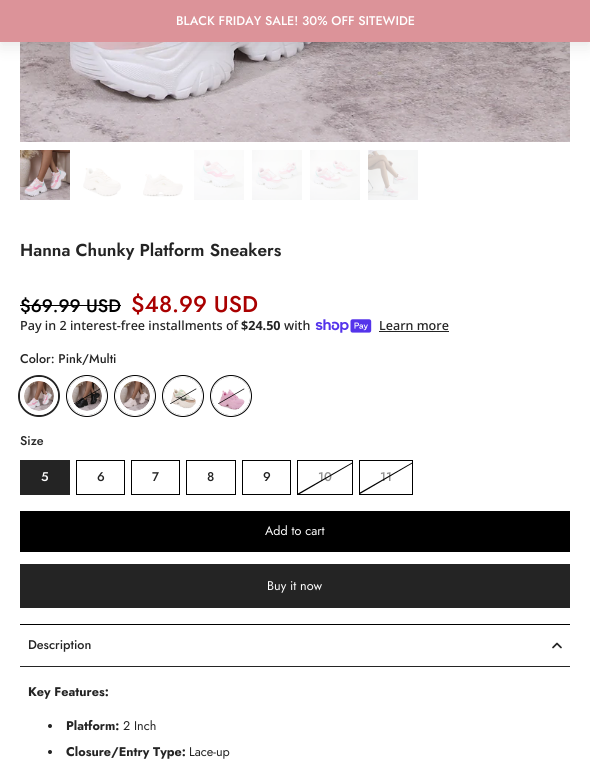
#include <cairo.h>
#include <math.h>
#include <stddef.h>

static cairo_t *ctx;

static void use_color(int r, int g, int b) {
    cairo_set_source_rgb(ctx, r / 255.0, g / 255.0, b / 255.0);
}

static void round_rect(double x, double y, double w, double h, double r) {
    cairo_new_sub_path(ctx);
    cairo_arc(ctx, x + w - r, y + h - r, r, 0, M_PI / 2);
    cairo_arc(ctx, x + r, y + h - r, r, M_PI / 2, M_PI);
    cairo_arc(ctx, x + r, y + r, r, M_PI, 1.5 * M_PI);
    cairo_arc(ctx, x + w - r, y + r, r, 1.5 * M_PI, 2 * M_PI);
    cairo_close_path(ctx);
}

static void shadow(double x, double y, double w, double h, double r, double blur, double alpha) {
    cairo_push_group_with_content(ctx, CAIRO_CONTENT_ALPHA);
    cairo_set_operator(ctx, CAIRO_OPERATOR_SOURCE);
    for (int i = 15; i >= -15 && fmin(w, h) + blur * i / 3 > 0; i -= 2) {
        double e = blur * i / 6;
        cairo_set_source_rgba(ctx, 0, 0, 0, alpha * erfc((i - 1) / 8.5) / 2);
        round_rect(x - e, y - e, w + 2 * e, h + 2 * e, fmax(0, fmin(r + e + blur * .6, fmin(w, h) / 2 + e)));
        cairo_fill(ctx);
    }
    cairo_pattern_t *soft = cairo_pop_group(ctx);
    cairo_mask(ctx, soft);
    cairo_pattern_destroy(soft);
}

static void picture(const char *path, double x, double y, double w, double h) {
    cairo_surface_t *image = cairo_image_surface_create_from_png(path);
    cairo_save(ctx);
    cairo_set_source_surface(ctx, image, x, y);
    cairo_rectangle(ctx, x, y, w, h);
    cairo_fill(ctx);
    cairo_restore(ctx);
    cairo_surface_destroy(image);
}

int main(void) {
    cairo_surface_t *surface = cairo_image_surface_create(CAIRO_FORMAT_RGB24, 590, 763);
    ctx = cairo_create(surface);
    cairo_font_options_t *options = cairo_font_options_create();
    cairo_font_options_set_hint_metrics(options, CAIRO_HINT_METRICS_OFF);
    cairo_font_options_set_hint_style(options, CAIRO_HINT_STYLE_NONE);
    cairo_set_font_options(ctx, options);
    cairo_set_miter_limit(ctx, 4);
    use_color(255, 255, 255);
    cairo_paint(ctx);
    picture("img1.png", 20, 42, 550, 100);
    use_color(36, 36, 36);
    shadow(0, -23, 590, 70, 0, 7.5, 0.1);
    use_color(220, 147, 153);
    cairo_rectangle(ctx, 0, 0, 590, 42);
    cairo_fill(ctx);
    cairo_select_font_face(ctx, "Jost Medium", CAIRO_FONT_SLANT_NORMAL, CAIRO_FONT_WEIGHT_NORMAL);
    cairo_set_font_size(ctx, 12.6);
    use_color(255, 255, 255);
    cairo_move_to(ctx, 176, 25);
    cairo_show_text(ctx, "BLACK FRIDAY SALE! 30% OFF SITEWIDE");
    picture("img2.png", 20, 150, 50, 50);
    picture("img3.png", 83, 168, 38, 29);
    picture("img4.png", 143, 174, 40, 23);
    picture("img5.png", 194, 150, 50, 50);
    picture("img6.png", 252, 150, 50, 50);
    picture("img7.png", 310, 150, 50, 50);
    picture("img8.png", 368, 150, 50, 50);
    cairo_select_font_face(ctx, "Jost SemiBold", CAIRO_FONT_SLANT_NORMAL, CAIRO_FONT_WEIGHT_NORMAL);
    cairo_set_font_size(ctx, 17.25);
    use_color(36, 36, 36);
    cairo_move_to(ctx, 20, 256);
    cairo_show_text(ctx, "Hanna Chunky Platform Sneakers");
    cairo_select_font_face(ctx, "Jost Medium", CAIRO_FONT_SLANT_NORMAL, CAIRO_FONT_WEIGHT_NORMAL);
    cairo_set_font_size(ctx, 18);
    use_color(0, 0, 0);
    cairo_move_to(ctx, 20, 312);
    cairo_show_text(ctx, "$69.99 USD");
    cairo_rectangle(ctx, 20, 305, 101, 1);
    cairo_fill(ctx);
    cairo_set_font_size(ctx, 22.75);
    use_color(169, 0, 0);
    cairo_move_to(ctx, 131, 312);
    cairo_show_text(ctx, "$48.99 USD");
    cairo_select_font_face(ctx, "Noto Sans Medium", CAIRO_FONT_SLANT_NORMAL, CAIRO_FONT_WEIGHT_NORMAL);
    cairo_set_font_size(ctx, 12.6);
    use_color(36, 36, 36);
    cairo_move_to(ctx, 20, 330);
    cairo_show_text(ctx, "Pay in 2 interest-free installments of");
    cairo_select_font_face(ctx, "Noto Sans", CAIRO_FONT_SLANT_NORMAL, CAIRO_FONT_WEIGHT_BOLD);
    cairo_move_to(ctx, 241, 330);
    cairo_show_text(ctx, "$24.50");
    cairo_select_font_face(ctx, "Noto Sans Medium", CAIRO_FONT_SLANT_NORMAL, CAIRO_FONT_WEIGHT_NORMAL);
    cairo_move_to(ctx, 284, 330);
    cairo_show_text(ctx, "with");
    picture("img9.png", 315, 319, 57, 14);
    cairo_move_to(ctx, 379, 330);
    cairo_show_text(ctx, "Learn more");
    cairo_rectangle(ctx, 379, 331, 70, 1);
    cairo_fill(ctx);
    cairo_select_font_face(ctx, "Jost Medium", CAIRO_FONT_SLANT_NORMAL, CAIRO_FONT_WEIGHT_NORMAL);
    cairo_move_to(ctx, 20, 363);
    cairo_show_text(ctx, "Color: Pink/Multi");
    cairo_new_path(ctx);
    cairo_arc(ctx, 39, 396, 20, 0, 2 * M_PI);
    cairo_stroke(ctx);
    cairo_arc(ctx, 39, 396, 17, 0, 2 * M_PI);
    use_color(255, 255, 255);
    cairo_set_line_width(ctx, 4);
    cairo_stroke(ctx);
    picture("img10.png", 24, 381, 30, 30);
    cairo_arc(ctx, 87, 396, 20, 0, 2 * M_PI);
    use_color(0, 0, 0);
    cairo_set_line_width(ctx, 2);
    cairo_stroke(ctx);
    cairo_arc(ctx, 87, 396, 19.5, 0, 2 * M_PI);
    use_color(255, 255, 255);
    cairo_set_line_width(ctx, 1);
    cairo_stroke(ctx);
    cairo_arc(ctx, 87, 396, 17, 0, 2 * M_PI);
    cairo_set_line_width(ctx, 4);
    cairo_stroke(ctx);
    picture("img11.png", 72, 381, 30, 30);
    use_color(0, 0, 0);
    cairo_new_path(ctx);
    cairo_move_to(ctx, 74.5, 404);
    cairo_line_to(ctx, 74, 403.5);
    cairo_line_to(ctx, 100, 388.5);
    cairo_line_to(ctx, 100.5, 389);
    cairo_close_path(ctx);
    cairo_fill(ctx);
    cairo_arc(ctx, 135, 396, 20, 0, 2 * M_PI);
    cairo_set_line_width(ctx, 2);
    cairo_stroke(ctx);
    cairo_arc(ctx, 135, 396, 19.5, 0, 2 * M_PI);
    use_color(255, 255, 255);
    cairo_set_line_width(ctx, 1);
    cairo_stroke(ctx);
    cairo_arc(ctx, 135, 396, 17, 0, 2 * M_PI);
    cairo_set_line_width(ctx, 4);
    cairo_stroke(ctx);
    picture("img12.png", 120, 381, 30, 30);
    cairo_arc(ctx, 183, 396, 20, 0, 2 * M_PI);
    use_color(0, 0, 0);
    cairo_set_line_width(ctx, 2);
    cairo_stroke(ctx);
    cairo_arc(ctx, 183, 396, 19.5, 0, 2 * M_PI);
    use_color(255, 255, 255);
    cairo_set_line_width(ctx, 1);
    cairo_stroke(ctx);
    cairo_arc(ctx, 183, 396, 17, 0, 2 * M_PI);
    cairo_set_line_width(ctx, 4);
    cairo_stroke(ctx);
    picture("img13.png", 171, 388, 25, 21);
    use_color(0, 0, 0);
    cairo_new_path(ctx);
    cairo_move_to(ctx, 170.5, 404);
    cairo_line_to(ctx, 170, 403.5);
    cairo_line_to(ctx, 196, 388.5);
    cairo_line_to(ctx, 196.5, 389);
    cairo_close_path(ctx);
    cairo_fill(ctx);
    cairo_arc(ctx, 231, 396, 20, 0, 2 * M_PI);
    cairo_set_line_width(ctx, 2);
    cairo_stroke(ctx);
    cairo_arc(ctx, 231, 396, 19.5, 0, 2 * M_PI);
    use_color(255, 255, 255);
    cairo_set_line_width(ctx, 1);
    cairo_stroke(ctx);
    cairo_arc(ctx, 231, 396, 17, 0, 2 * M_PI);
    cairo_set_line_width(ctx, 4);
    cairo_stroke(ctx);
    picture("img14.png", 219, 389, 26, 21);
    use_color(0, 0, 0);
    cairo_new_path(ctx);
    cairo_move_to(ctx, 218.5, 404);
    cairo_line_to(ctx, 218, 403.5);
    cairo_line_to(ctx, 244, 388.5);
    cairo_line_to(ctx, 244.5, 389);
    cairo_close_path(ctx);
    cairo_fill(ctx);
    use_color(36, 36, 36);
    cairo_move_to(ctx, 20, 445);
    cairo_show_text(ctx, "Size");
    cairo_rectangle(ctx, 20, 460, 50, 35);
    cairo_fill(ctx);
    use_color(255, 255, 255);
    cairo_move_to(ctx, 41, 481);
    cairo_show_text(ctx, "5");
    cairo_rectangle(ctx, 76.5, 460.5, 48, 34);
    use_color(0, 0, 0);
    cairo_set_line_width(ctx, 1);
    cairo_stroke(ctx);
    use_color(36, 36, 36);
    cairo_move_to(ctx, 97, 481);
    cairo_show_text(ctx, "6");
    cairo_rectangle(ctx, 131.5, 460.5, 48, 34);
    use_color(0, 0, 0);
    cairo_stroke(ctx);
    use_color(36, 36, 36);
    cairo_move_to(ctx, 152, 481);
    cairo_show_text(ctx, "7");
    cairo_rectangle(ctx, 186.5, 460.5, 49, 34);
    use_color(0, 0, 0);
    cairo_stroke(ctx);
    use_color(36, 36, 36);
    cairo_move_to(ctx, 207, 481);
    cairo_show_text(ctx, "8");
    cairo_rectangle(ctx, 242.5, 460.5, 48, 34);
    use_color(0, 0, 0);
    cairo_stroke(ctx);
    use_color(36, 36, 36);
    cairo_move_to(ctx, 263, 481);
    cairo_show_text(ctx, "9");
    cairo_rectangle(ctx, 297.5, 460.5, 55, 34);
    use_color(0, 0, 0);
    cairo_stroke(ctx);
    use_color(146, 146, 146);
    cairo_move_to(ctx, 318, 481);
    cairo_show_text(ctx, "10");
    cairo_save(ctx);
    cairo_rectangle(ctx, 298, 461, 54, 33);
    cairo_clip(ctx);
    use_color(0, 0, 0);
    cairo_new_path(ctx);
    cairo_move_to(ctx, 297, 494);
    cairo_line_to(ctx, 353, 462);
    cairo_line_to(ctx, 353, 463);
    cairo_line_to(ctx, 298, 495);
    cairo_close_path(ctx);
    cairo_fill(ctx);
    cairo_restore(ctx);
    cairo_rectangle(ctx, 359.5, 460.5, 53, 34);
    use_color(0, 0, 0);
    cairo_stroke(ctx);
    use_color(146, 146, 146);
    cairo_move_to(ctx, 380, 481);
    cairo_show_text(ctx, "11");
    cairo_save(ctx);
    cairo_rectangle(ctx, 360, 461, 52, 33);
    cairo_clip(ctx);
    use_color(0, 0, 0);
    cairo_new_path(ctx);
    cairo_move_to(ctx, 359, 493);
    cairo_line_to(ctx, 413, 462);
    cairo_line_to(ctx, 413, 463);
    cairo_line_to(ctx, 360, 494);
    cairo_close_path(ctx);
    cairo_fill(ctx);
    cairo_restore(ctx);
    use_color(0, 0, 0);
    cairo_rectangle(ctx, 20, 511, 550, 41);
    cairo_fill(ctx);
    cairo_select_font_face(ctx, "Jost", CAIRO_FONT_SLANT_NORMAL, CAIRO_FONT_WEIGHT_NORMAL);
    use_color(255, 255, 255);
    cairo_move_to(ctx, 265, 535);
    cairo_show_text(ctx, "Add to cart");
    use_color(36, 36, 36);
    cairo_rectangle(ctx, 20, 564, 550, 44);
    cairo_fill(ctx);
    use_color(255, 255, 255);
    cairo_move_to(ctx, 267, 590);
    cairo_show_text(ctx, "Buy it now");
    use_color(0, 0, 0);
    cairo_rectangle(ctx, 20, 624, 550, 1);
    cairo_fill(ctx);
    cairo_select_font_face(ctx, "Jost Medium", CAIRO_FONT_SLANT_NORMAL, CAIRO_FONT_WEIGHT_NORMAL);
    use_color(36, 36, 36);
    cairo_move_to(ctx, 28, 649);
    cairo_show_text(ctx, "Description");
    cairo_new_path(ctx);
    cairo_move_to(ctx, 561, 647.5);
    cairo_line_to(ctx, 557, 643.5);
    cairo_line_to(ctx, 553, 647.5);
    cairo_set_line_width(ctx, 1.7);
    cairo_set_line_cap(ctx, CAIRO_LINE_CAP_ROUND);
    cairo_set_line_join(ctx, CAIRO_LINE_JOIN_ROUND);
    cairo_stroke(ctx);
    cairo_rectangle(ctx, 20, 666, 550, 1);
    cairo_fill(ctx);
    cairo_select_font_face(ctx, "Jost", CAIRO_FONT_SLANT_NORMAL, CAIRO_FONT_WEIGHT_BOLD);
    cairo_move_to(ctx, 28, 696);
    cairo_show_text(ctx, "Key Features:");
    cairo_new_path(ctx);
    cairo_arc(ctx, 50, 726, 2, 0, 2 * M_PI);
    cairo_fill(ctx);
    cairo_move_to(ctx, 66, 730);
    cairo_show_text(ctx, "Platform:");
    cairo_select_font_face(ctx, "Jost", CAIRO_FONT_SLANT_NORMAL, CAIRO_FONT_WEIGHT_NORMAL);
    cairo_move_to(ctx, 123, 730);
    cairo_show_text(ctx, "2 Inch");
    cairo_new_path(ctx);
    cairo_arc(ctx, 50, 752, 2, 0, 2 * M_PI);
    cairo_fill(ctx);
    cairo_select_font_face(ctx, "Jost", CAIRO_FONT_SLANT_NORMAL, CAIRO_FONT_WEIGHT_BOLD);
    cairo_move_to(ctx, 66, 756);
    cairo_show_text(ctx, "Closure/Entry Type:");
    cairo_select_font_face(ctx, "Jost", CAIRO_FONT_SLANT_NORMAL, CAIRO_FONT_WEIGHT_NORMAL);
    cairo_move_to(ctx, 189, 756);
    cairo_show_text(ctx, "Lace-up");
    cairo_surface_write_to_png(surface, "result.png");
    cairo_font_options_destroy(options);
    cairo_destroy(ctx);
    cairo_surface_destroy(surface);
    return 0;
}
